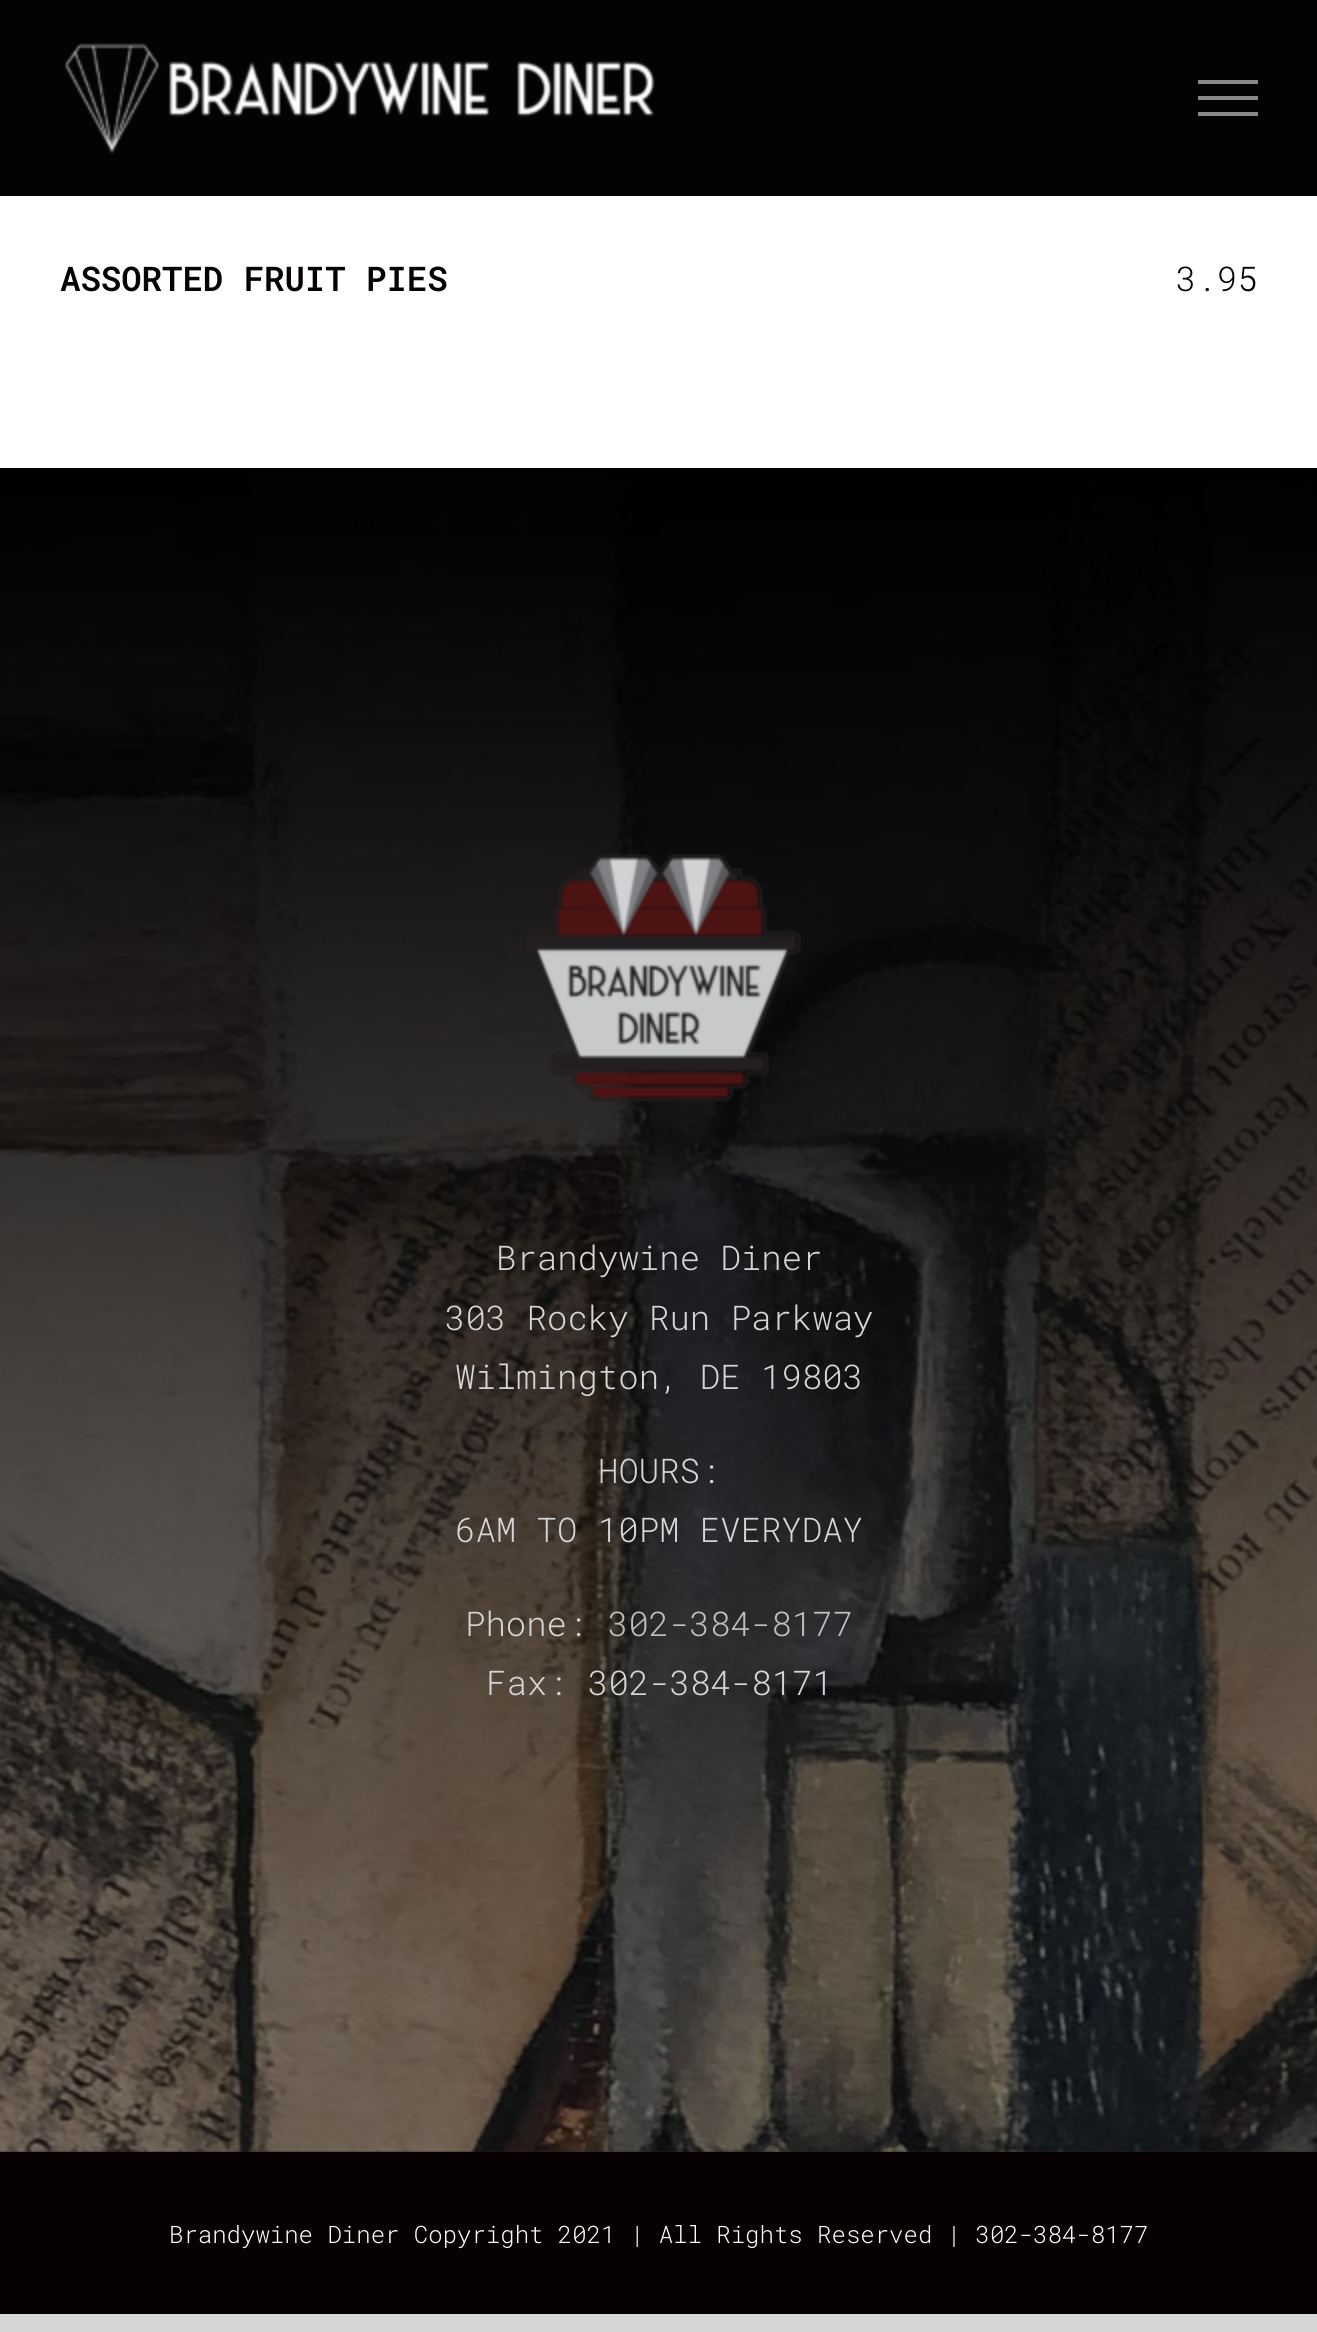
#include <cairo.h>
#include <math.h>
#include <stddef.h>

static cairo_t *ctx;

static void use_color(int r, int g, int b) {
    cairo_set_source_rgb(ctx, r / 255.0, g / 255.0, b / 255.0);
}

static void picture(const char *path, double x, double y, double w, double h) {
    cairo_surface_t *image = cairo_image_surface_create_from_png(path);
    cairo_save(ctx);
    cairo_set_source_surface(ctx, image, x, y);
    cairo_rectangle(ctx, x, y, w, h);
    cairo_fill(ctx);
    cairo_restore(ctx);
    cairo_surface_destroy(image);
}

int main(void) {
    cairo_surface_t *surface = cairo_image_surface_create(CAIRO_FORMAT_RGB24, 1317, 2332);
    ctx = cairo_create(surface);
    cairo_font_options_t *options = cairo_font_options_create();
    cairo_font_options_set_hint_metrics(options, CAIRO_HINT_METRICS_OFF);
    cairo_font_options_set_hint_style(options, CAIRO_HINT_STYLE_NONE);
    cairo_set_font_options(ctx, options);
    cairo_set_miter_limit(ctx, 4);
    use_color(215, 214, 214);
    cairo_paint(ctx);
    use_color(255, 255, 255);
    cairo_rectangle(ctx, 0, 196, 1317, 272);
    cairo_fill(ctx);
    use_color(3, 3, 3);
    cairo_rectangle(ctx, 0, 0, 1317, 196);
    cairo_fill(ctx);
    picture("img1.png", 64, 43, 591, 111);
    use_color(135, 135, 135);
    cairo_rectangle(ctx, 1198, 80, 60, 4);
    cairo_fill(ctx);
    cairo_rectangle(ctx, 1198, 96, 60, 4);
    cairo_fill(ctx);
    cairo_rectangle(ctx, 1198, 112, 60, 4);
    cairo_fill(ctx);
    cairo_select_font_face(ctx, "Roboto Mono SemiBold", CAIRO_FONT_SLANT_NORMAL, CAIRO_FONT_WEIGHT_NORMAL);
    cairo_set_font_size(ctx, 34);
    use_color(8, 3, 3);
    cairo_move_to(ctx, 60, 291);
    cairo_show_text(ctx, "ASSORTED FRUIT PIES");
    cairo_select_font_face(ctx, "Roboto Mono Light", CAIRO_FONT_SLANT_NORMAL, CAIRO_FONT_WEIGHT_NORMAL);
    cairo_move_to(ctx, 1176, 291);
    cairo_show_text(ctx, "3.95");
    use_color(34, 40, 53);
    cairo_rectangle(ctx, 0, 2151, 1317, 1);
    cairo_fill(ctx);
    picture("img2.png", 0, 468, 1317, 1684);
    picture("img3.png", 527, 854, 274, 248);
    use_color(214, 214, 214);
    cairo_move_to(ctx, 496, 1270);
    cairo_show_text(ctx, "Brandywine Diner");
    cairo_move_to(ctx, 445, 1330);
    cairo_show_text(ctx, "303 Rocky Run Parkway");
    cairo_move_to(ctx, 455, 1389);
    cairo_show_text(ctx, "Wilmington, DE 19803");
    cairo_move_to(ctx, 598, 1483);
    cairo_show_text(ctx, "HOURS:");
    cairo_move_to(ctx, 455, 1542);
    cairo_show_text(ctx, "6AM TO 10PM EVERYDAY");
    cairo_move_to(ctx, 465, 1636);
    cairo_show_text(ctx, "Phone:");
    use_color(191, 191, 191);
    cairo_move_to(ctx, 608, 1636);
    cairo_show_text(ctx, "302-384-8177");
    use_color(214, 214, 214);
    cairo_move_to(ctx, 486, 1695);
    cairo_show_text(ctx, "Fax: 302-384-8171");
    use_color(7, 0, 0);
    cairo_rectangle(ctx, 0, 2152, 1317, 162);
    cairo_fill(ctx);
    cairo_set_font_size(ctx, 24);
    use_color(255, 255, 255);
    cairo_move_to(ctx, 169, 2243);
    cairo_show_text(ctx, "Brandywine Diner Copyright 2021 | All Rights Reserved | 302-384-8177");
    cairo_surface_write_to_png(surface, "result.png");
    cairo_font_options_destroy(options);
    cairo_destroy(ctx);
    cairo_surface_destroy(surface);
    return 0;
}
